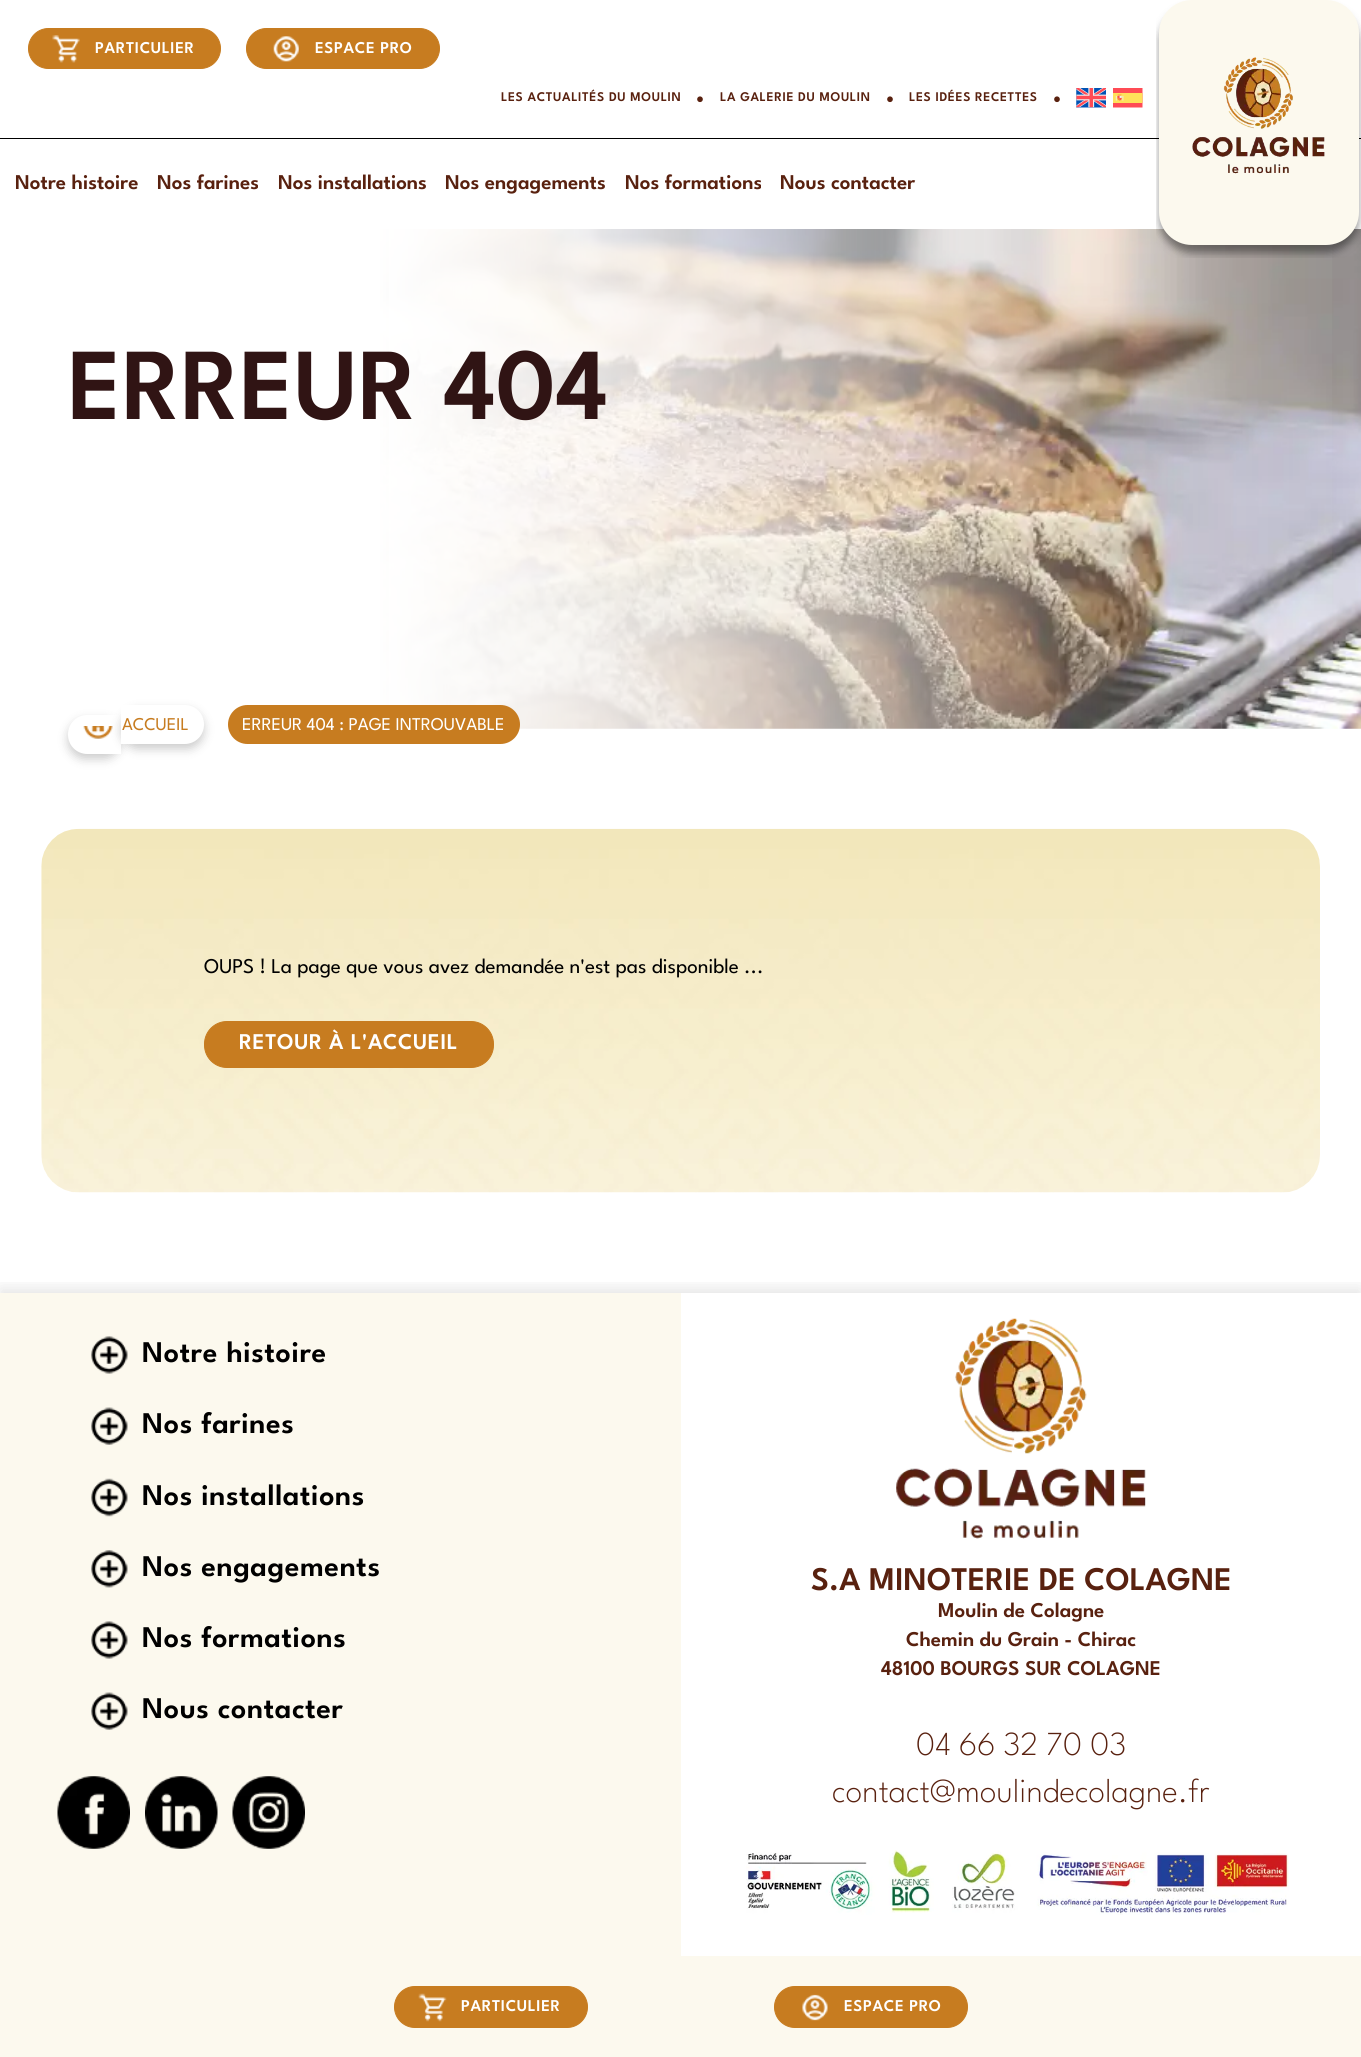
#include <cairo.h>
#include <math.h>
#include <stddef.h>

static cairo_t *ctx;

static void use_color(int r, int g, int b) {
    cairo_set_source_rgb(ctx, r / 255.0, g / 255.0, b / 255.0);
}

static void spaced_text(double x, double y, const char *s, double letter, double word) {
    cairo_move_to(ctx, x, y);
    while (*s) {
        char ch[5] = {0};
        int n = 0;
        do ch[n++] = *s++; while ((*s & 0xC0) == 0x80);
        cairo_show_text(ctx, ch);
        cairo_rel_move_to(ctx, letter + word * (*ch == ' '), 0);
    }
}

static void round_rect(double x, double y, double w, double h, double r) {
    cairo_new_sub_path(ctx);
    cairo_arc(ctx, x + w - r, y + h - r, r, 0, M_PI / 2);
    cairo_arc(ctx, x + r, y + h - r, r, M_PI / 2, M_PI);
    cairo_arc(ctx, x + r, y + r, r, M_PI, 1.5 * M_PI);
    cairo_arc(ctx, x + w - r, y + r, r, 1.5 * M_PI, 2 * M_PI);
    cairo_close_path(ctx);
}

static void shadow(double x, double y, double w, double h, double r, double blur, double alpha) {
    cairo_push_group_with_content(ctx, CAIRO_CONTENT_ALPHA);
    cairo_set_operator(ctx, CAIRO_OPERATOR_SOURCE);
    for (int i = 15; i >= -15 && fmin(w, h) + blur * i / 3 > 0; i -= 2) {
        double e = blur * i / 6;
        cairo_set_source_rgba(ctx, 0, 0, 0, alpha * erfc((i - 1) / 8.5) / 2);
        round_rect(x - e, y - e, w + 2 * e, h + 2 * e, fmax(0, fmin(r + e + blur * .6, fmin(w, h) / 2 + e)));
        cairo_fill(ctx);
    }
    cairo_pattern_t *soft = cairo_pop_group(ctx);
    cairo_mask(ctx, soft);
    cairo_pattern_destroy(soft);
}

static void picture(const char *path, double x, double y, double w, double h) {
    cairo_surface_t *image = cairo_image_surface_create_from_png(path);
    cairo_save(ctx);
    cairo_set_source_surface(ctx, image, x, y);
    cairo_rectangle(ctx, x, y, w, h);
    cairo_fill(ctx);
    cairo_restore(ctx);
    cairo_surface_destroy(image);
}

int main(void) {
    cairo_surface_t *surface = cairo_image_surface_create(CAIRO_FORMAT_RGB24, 1361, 2057);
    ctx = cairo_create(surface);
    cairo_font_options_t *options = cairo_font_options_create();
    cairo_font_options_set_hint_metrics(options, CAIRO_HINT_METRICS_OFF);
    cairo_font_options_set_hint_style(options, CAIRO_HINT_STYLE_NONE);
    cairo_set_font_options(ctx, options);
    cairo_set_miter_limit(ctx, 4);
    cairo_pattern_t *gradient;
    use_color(255, 255, 255);
    cairo_paint(ctx);
    use_color(199, 124, 32);
    round_rect(28.5, 28.5, 192, 40, 20);
    cairo_fill_preserve(ctx);
    cairo_set_line_width(ctx, 1);
    cairo_stroke(ctx);
    picture("img1.png", 52, 35, 28, 28);
    cairo_select_font_face(ctx, "League Spartan SemiBold", CAIRO_FONT_SLANT_NORMAL, CAIRO_FONT_WEIGHT_NORMAL);
    cairo_set_font_size(ctx, 16.5);
    use_color(255, 255, 255);
    spaced_text(95, 53, "PARTICULIER", 0.6, 0);
    use_color(199, 124, 32);
    round_rect(246.5, 28.5, 193, 40, 20);
    cairo_fill_preserve(ctx);
    cairo_stroke(ctx);
    picture("img2.png", 273, 36, 26, 26);
    use_color(255, 255, 255);
    spaced_text(315, 53, "ESPACE PRO", 0.6, 0);
    use_color(0, 0, 0);
    cairo_rectangle(ctx, 0, 138, 1361, 1);
    cairo_fill(ctx);
    cairo_set_font_size(ctx, 13.25);
    use_color(89, 33, 15);
    spaced_text(501, 101, "LES ACTUALITÉS DU MOULIN", 0.6, 0);
    cairo_select_font_face(ctx, "Liberation Sans", CAIRO_FONT_SLANT_NORMAL, CAIRO_FONT_WEIGHT_BOLD);
    spaced_text(696, 103, "●", 0.6, 0);
    cairo_select_font_face(ctx, "League Spartan SemiBold", CAIRO_FONT_SLANT_NORMAL, CAIRO_FONT_WEIGHT_NORMAL);
    spaced_text(720, 101, "LA GALERIE DU MOULIN", 0.6, 0);
    cairo_select_font_face(ctx, "Liberation Sans", CAIRO_FONT_SLANT_NORMAL, CAIRO_FONT_WEIGHT_BOLD);
    spaced_text(886, 103, "●", 0.6, 0);
    cairo_select_font_face(ctx, "League Spartan SemiBold", CAIRO_FONT_SLANT_NORMAL, CAIRO_FONT_WEIGHT_NORMAL);
    spaced_text(909, 101, "LES IDÉES RECETTES", 0.6, 0);
    cairo_select_font_face(ctx, "Liberation Sans", CAIRO_FONT_SLANT_NORMAL, CAIRO_FONT_WEIGHT_BOLD);
    spaced_text(1053, 103, "●", 0.6, 0);
    picture("img3.png", 1076, 88, 30, 20);
    picture("img4.png", 1113, 88, 30, 20);
    cairo_select_font_face(ctx, "League Spartan SemiBold", CAIRO_FONT_SLANT_NORMAL, CAIRO_FONT_WEIGHT_NORMAL);
    cairo_set_font_size(ctx, 21);
    cairo_move_to(ctx, 15, 189);
    cairo_show_text(ctx, "Notre histoire");
    cairo_move_to(ctx, 157, 189);
    cairo_show_text(ctx, "Nos farines");
    cairo_move_to(ctx, 278, 189);
    cairo_show_text(ctx, "Nos installations");
    cairo_move_to(ctx, 445, 189);
    cairo_show_text(ctx, "Nos engagements");
    cairo_move_to(ctx, 625, 189);
    cairo_show_text(ctx, "Nos formations");
    cairo_move_to(ctx, 780, 189);
    cairo_show_text(ctx, "Nous contacter");
    picture("img6.png", 380, 229, 981, 500);
    gradient = cairo_pattern_create_linear(0, 479, 1075, 479);
    cairo_pattern_add_color_stop_rgba(gradient, 0.35, 1, 1, 1, 1);
    cairo_pattern_add_color_stop_rgba(gradient, 1, 1, 1, 1, 0);
    cairo_set_source(ctx, gradient);
    cairo_pattern_destroy(gradient);
    cairo_rectangle(ctx, 380, 229, 680, 500);
    cairo_fill(ctx);
    gradient = cairo_pattern_create_linear(0, 479, 1361, 479);
    cairo_pattern_add_color_stop_rgba(gradient, 0, 1, 1, 1, 1);
    cairo_pattern_add_color_stop_rgba(gradient, 1, 1, 1, 1, 0);
    cairo_set_source(ctx, gradient);
    cairo_pattern_destroy(gradient);
    cairo_rectangle(ctx, 389, 229, 943, 500);
    cairo_fill(ctx);
    cairo_save(ctx);
    cairo_rectangle(ctx, 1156, 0, 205, 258);
    cairo_clip(ctx);
    use_color(0, 0, 0);
    shadow(1159, 8, 200, 245, 33, 4, 0.4);
    cairo_restore(ctx);
    use_color(252, 249, 238);
    round_rect(1159, 0, 200, 245, 33);
    cairo_fill(ctx);
    picture("img5.png", 1192, 57, 133, 117);
    cairo_set_font_size(ctx, 102);
    use_color(48, 20, 20);
    cairo_move_to(ctx, 68, 419);
    cairo_show_text(ctx, "ERREUR 404");
    use_color(0, 0, 0);
    shadow(68, 720, 53, 39, 19.5, 5, 0.2);
    use_color(255, 255, 255);
    cairo_new_path(ctx);
    cairo_move_to(ctx, 87.5, 715);
    cairo_line_to(ctx, 121, 715);
    cairo_line_to(ctx, 121, 754);
    cairo_line_to(ctx, 87.5, 754);
    cairo_curve_to(ctx, 76.5, 754, 68, 745.5, 68, 734.5);
    cairo_curve_to(ctx, 68, 723.5, 76.5, 715, 87.5, 715);
    cairo_close_path(ctx);
    cairo_fill(ctx);
    use_color(0, 0, 0);
    shadow(121, 710, 83, 39, 19.5, 5, 0.2);
    use_color(255, 255, 255);
    cairo_new_path(ctx);
    cairo_move_to(ctx, 121, 705);
    cairo_line_to(ctx, 184.5, 705);
    cairo_curve_to(ctx, 195.5, 705, 204, 713.5, 204, 724.5);
    cairo_curve_to(ctx, 204, 735.5, 195.5, 744, 184.5, 744);
    cairo_line_to(ctx, 121, 744);
    cairo_close_path(ctx);
    cairo_fill(ctx);
    cairo_select_font_face(ctx, "League Spartan", CAIRO_FONT_SLANT_NORMAL, CAIRO_FONT_WEIGHT_NORMAL);
    cairo_set_font_size(ctx, 18);
    use_color(199, 124, 32);
    cairo_move_to(ctx, 122, 730);
    cairo_show_text(ctx, "ACCUEIL");
    round_rect(228, 705, 292, 39, 19.5);
    cairo_fill(ctx);
    use_color(255, 255, 255);
    cairo_move_to(ctx, 242, 730);
    cairo_show_text(ctx, "ERREUR 404 : PAGE INTROUVABLE");
    picture("img7.png", 83, 726, 30, 13);
    picture("img8.png", 41, 828, 1279, 365);
    cairo_set_font_size(ctx, 21);
    use_color(0, 0, 0);
    cairo_move_to(ctx, 204, 973);
    cairo_show_text(ctx, "OUPS ! La page que vous avez demandée n'est pas disponible ...");
    use_color(199, 124, 32);
    round_rect(204.5, 1021.5, 289, 46, 22.5);
    cairo_fill_preserve(ctx);
    cairo_stroke(ctx);
    cairo_select_font_face(ctx, "League Spartan SemiBold", CAIRO_FONT_SLANT_NORMAL, CAIRO_FONT_WEIGHT_NORMAL);
    cairo_set_font_size(ctx, 22.5);
    use_color(255, 255, 255);
    spaced_text(239, 1049, "RETOUR À L'ACCUEIL", 0.6, 0);
    cairo_save(ctx);
    cairo_rectangle(ctx, 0, 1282, 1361, 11);
    cairo_clip(ctx);
    use_color(0, 0, 0);
    shadow(0, 1288, 1361, 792, 0, 7.5, 0.1);
    cairo_restore(ctx);
    use_color(252, 249, 238);
    cairo_rectangle(ctx, 0, 1293, 681, 663);
    cairo_fill(ctx);
    picture("img9.png", 91, 1336, 37, 38);
    cairo_set_font_size(ctx, 30);
    use_color(0, 0, 0);
    spaced_text(142, 1362, "Notre histoire", 0.6, 0);
    picture("img10.png", 91, 1407, 37, 38);
    spaced_text(142, 1433, "Nos farines", 0.6, 0);
    picture("img11.png", 91, 1478, 37, 39);
    spaced_text(142, 1505, "Nos installations", 0.6, 0);
    picture("img12.png", 91, 1550, 37, 38);
    spaced_text(142, 1576, "Nos engagements", 0.6, 0);
    picture("img9.png", 91, 1621, 37, 38);
    spaced_text(142, 1647, "Nos formations", 0.6, 0);
    picture("img10.png", 91, 1692, 37, 38);
    spaced_text(142, 1718, "Nous contacter", 0.6, 0);
    picture("img13.png", 57, 1776, 73, 73);
    picture("img14.png", 145, 1776, 73, 73);
    picture("img15.png", 232, 1776, 73, 73);
    picture("img16.png", 896, 1318, 250, 221);
    cairo_set_font_size(ctx, 33);
    use_color(89, 33, 15);
    cairo_move_to(ctx, 811, 1590);
    cairo_show_text(ctx, "S.A MINOTERIE DE COLAGNE");
    cairo_set_font_size(ctx, 21);
    cairo_move_to(ctx, 938, 1617);
    cairo_show_text(ctx, "Moulin de Colagne");
    cairo_move_to(ctx, 906, 1646);
    cairo_show_text(ctx, "Chemin du Grain - Chirac");
    cairo_move_to(ctx, 881, 1675);
    cairo_show_text(ctx, "48100 BOURGS SUR COLAGNE");
    cairo_select_font_face(ctx, "League Spartan ExtraLight", CAIRO_FONT_SLANT_NORMAL, CAIRO_FONT_WEIGHT_NORMAL);
    cairo_set_font_size(ctx, 33.6);
    cairo_move_to(ctx, 916, 1755);
    cairo_show_text(ctx, "04 66 32 70 03");
    cairo_move_to(ctx, 832, 1802);
    cairo_show_text(ctx, "contact@moulindecolagne.fr");
    picture("img17.png", 746, 1850, 543, 65);
    use_color(252, 249, 238);
    cairo_rectangle(ctx, 0, 1956, 1361, 101);
    cairo_fill(ctx);
    use_color(199, 124, 32);
    round_rect(394.5, 1986.5, 193, 41, 20.5);
    cairo_fill_preserve(ctx);
    cairo_stroke(ctx);
    picture("img18.png", 418, 1993, 29, 29);
    cairo_select_font_face(ctx, "League Spartan SemiBold", CAIRO_FONT_SLANT_NORMAL, CAIRO_FONT_WEIGHT_NORMAL);
    cairo_set_font_size(ctx, 16.5);
    use_color(255, 255, 255);
    spaced_text(461, 2011, "PARTICULIER", 0.6, 0);
    use_color(199, 124, 32);
    round_rect(774.5, 1986.5, 193, 41, 20.5);
    cairo_fill_preserve(ctx);
    cairo_stroke(ctx);
    picture("img19.png", 802, 1994, 26, 27);
    use_color(255, 255, 255);
    spaced_text(844, 2011, "ESPACE PRO", 0.6, 0);
    cairo_surface_write_to_png(surface, "result.png");
    cairo_font_options_destroy(options);
    cairo_destroy(ctx);
    cairo_surface_destroy(surface);
    return 0;
}
